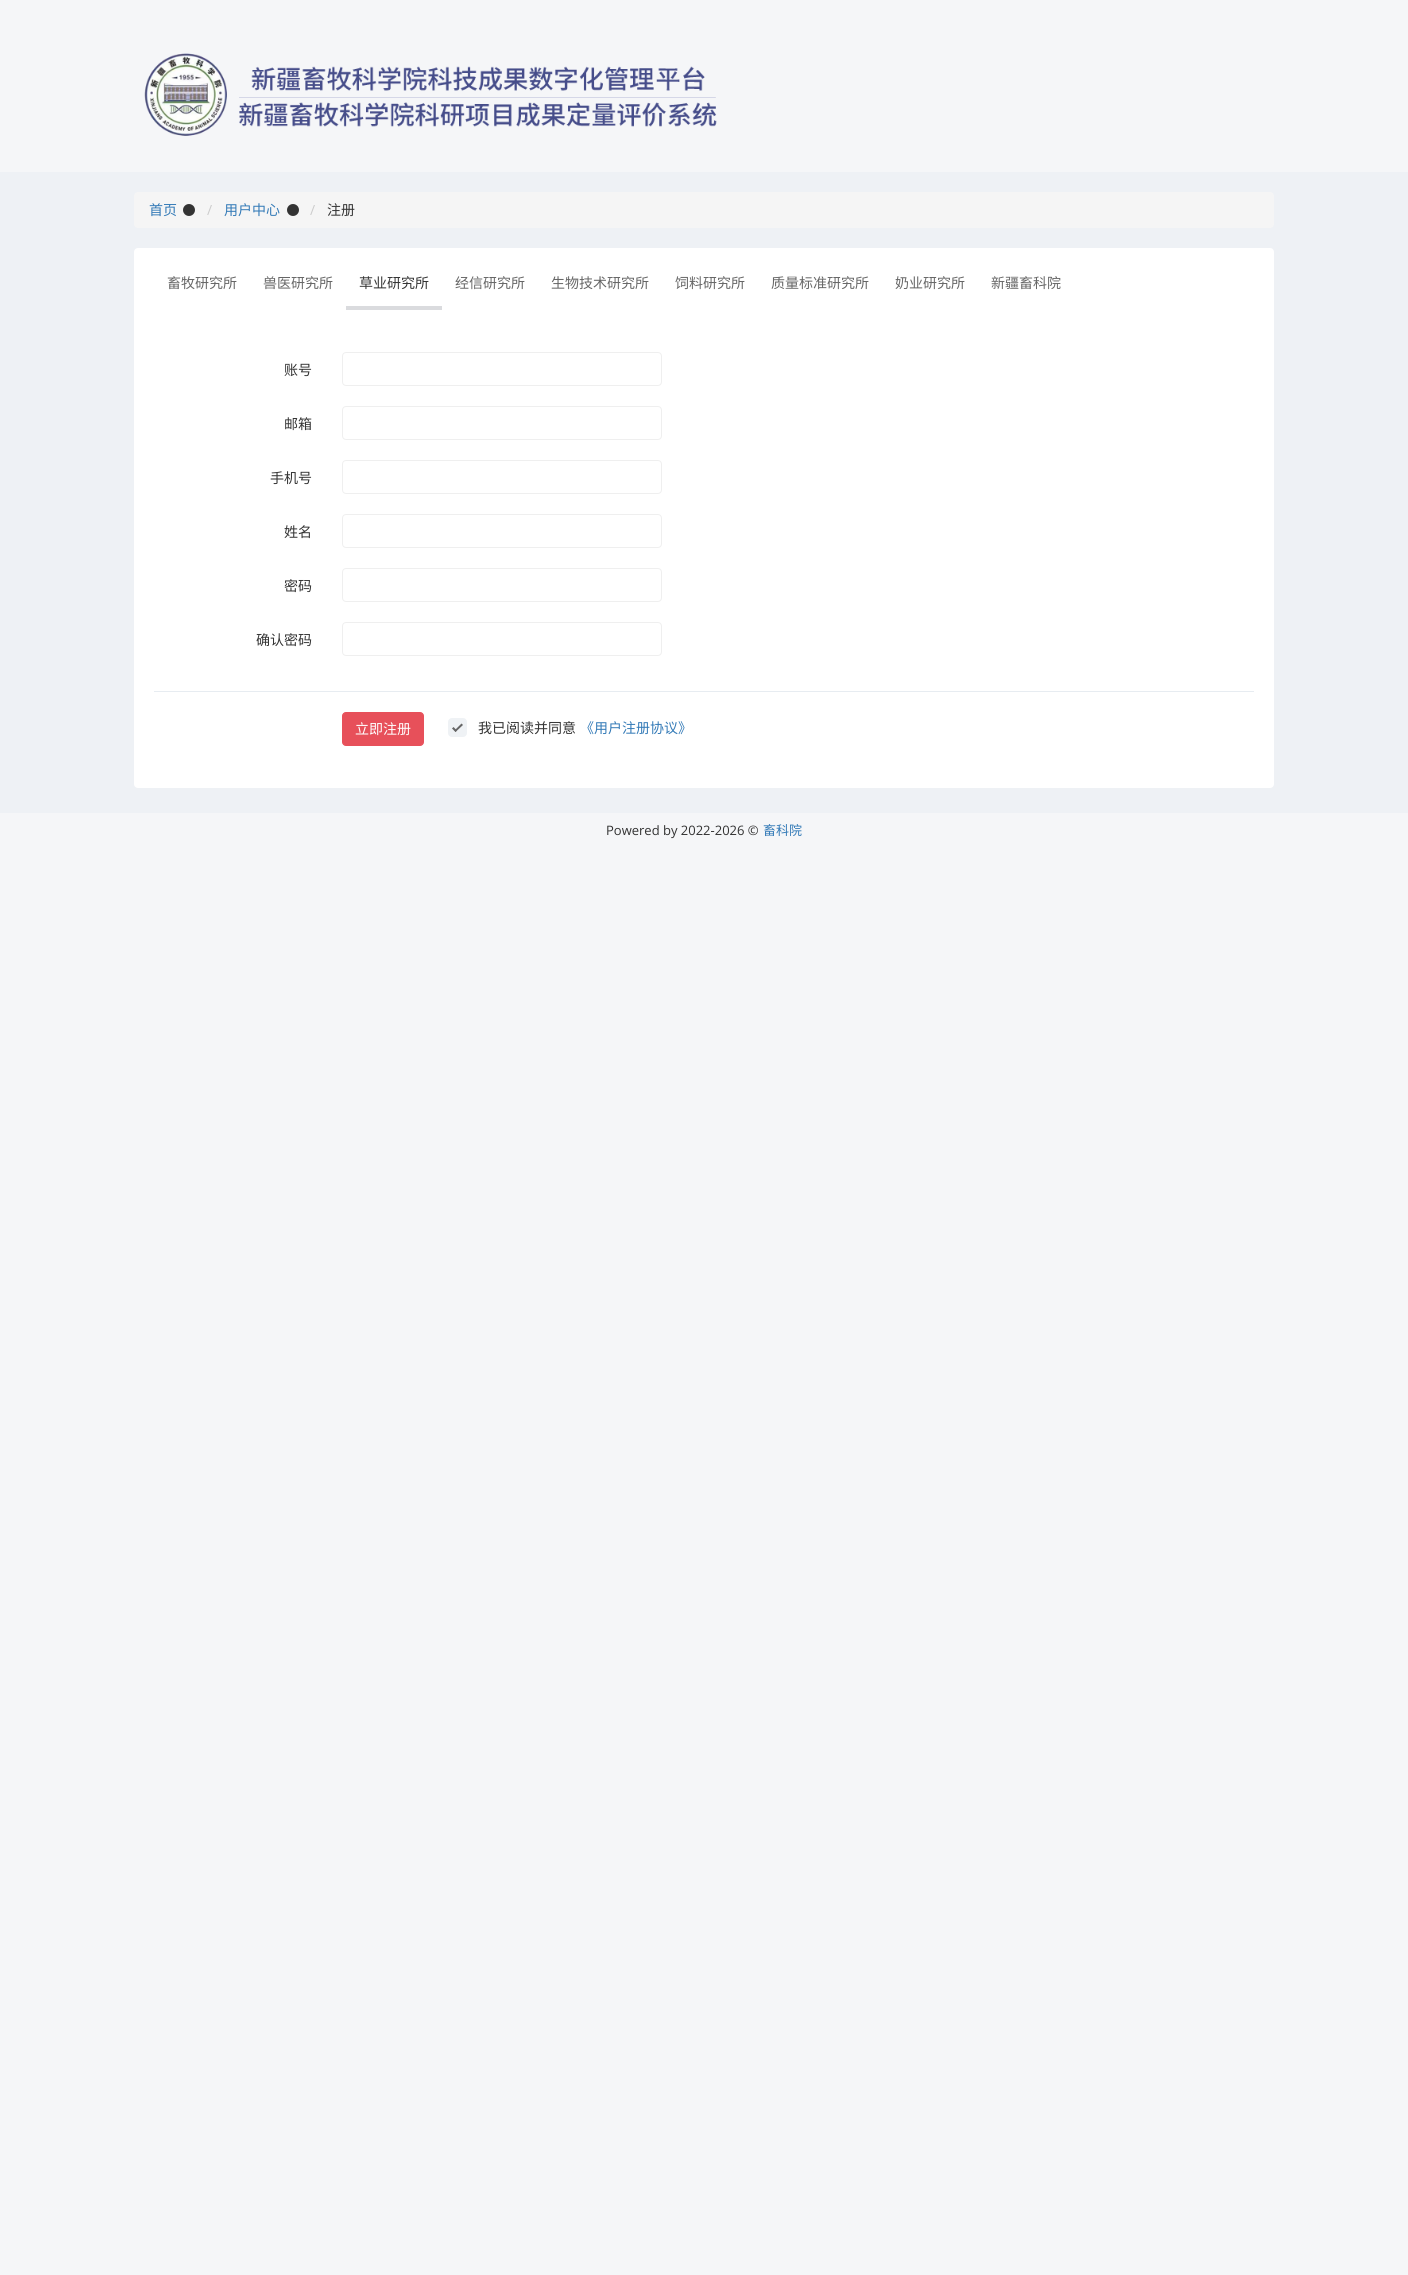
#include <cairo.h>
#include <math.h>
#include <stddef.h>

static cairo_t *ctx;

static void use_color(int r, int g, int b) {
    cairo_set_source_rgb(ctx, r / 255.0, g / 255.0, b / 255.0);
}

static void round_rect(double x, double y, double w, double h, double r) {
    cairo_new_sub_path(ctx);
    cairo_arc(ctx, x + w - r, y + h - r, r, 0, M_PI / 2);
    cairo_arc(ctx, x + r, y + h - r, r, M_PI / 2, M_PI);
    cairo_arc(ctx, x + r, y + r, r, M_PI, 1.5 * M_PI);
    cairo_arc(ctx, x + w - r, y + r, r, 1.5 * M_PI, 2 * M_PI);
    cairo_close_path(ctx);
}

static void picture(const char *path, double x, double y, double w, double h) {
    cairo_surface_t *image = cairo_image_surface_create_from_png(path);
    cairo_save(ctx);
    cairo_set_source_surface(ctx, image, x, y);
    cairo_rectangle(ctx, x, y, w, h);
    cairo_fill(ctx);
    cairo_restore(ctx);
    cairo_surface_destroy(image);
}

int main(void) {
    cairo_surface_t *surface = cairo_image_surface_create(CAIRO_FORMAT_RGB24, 1408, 2275);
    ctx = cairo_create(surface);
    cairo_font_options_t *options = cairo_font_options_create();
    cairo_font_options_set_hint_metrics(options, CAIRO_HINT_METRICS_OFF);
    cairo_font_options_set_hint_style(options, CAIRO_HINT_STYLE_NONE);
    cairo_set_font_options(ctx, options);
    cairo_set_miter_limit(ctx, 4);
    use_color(245, 246, 248);
    cairo_paint(ctx);
    picture("img1.png", 144, 53, 573, 83);
    use_color(238, 241, 245);
    cairo_rectangle(ctx, 0, 172, 1408, 641);
    cairo_fill(ctx);
    use_color(245, 245, 245);
    round_rect(134, 192, 1140, 36, 4);
    cairo_fill(ctx);
    cairo_select_font_face(ctx, "Noto Sans CJK SC", CAIRO_FONT_SLANT_NORMAL, CAIRO_FONT_WEIGHT_NORMAL);
    cairo_set_font_size(ctx, 14);
    use_color(51, 122, 183);
    cairo_move_to(ctx, 149, 215);
    cairo_show_text(ctx, "首页");
    picture("img2.png", 183, 204, 12, 12);
    cairo_select_font_face(ctx, "Open Sans", CAIRO_FONT_SLANT_NORMAL, CAIRO_FONT_WEIGHT_NORMAL);
    use_color(204, 204, 204);
    cairo_move_to(ctx, 207, 215);
    cairo_show_text(ctx, "/");
    cairo_select_font_face(ctx, "Noto Sans CJK SC", CAIRO_FONT_SLANT_NORMAL, CAIRO_FONT_WEIGHT_NORMAL);
    use_color(51, 122, 183);
    cairo_move_to(ctx, 224, 215);
    cairo_show_text(ctx, "用户中心");
    picture("img2.png", 287, 204, 12, 12);
    cairo_select_font_face(ctx, "Open Sans", CAIRO_FONT_SLANT_NORMAL, CAIRO_FONT_WEIGHT_NORMAL);
    use_color(204, 204, 204);
    cairo_move_to(ctx, 310, 215);
    cairo_show_text(ctx, "/");
    cairo_select_font_face(ctx, "Noto Sans CJK SC", CAIRO_FONT_SLANT_NORMAL, CAIRO_FONT_WEIGHT_NORMAL);
    use_color(51, 51, 51);
    cairo_move_to(ctx, 327, 215);
    cairo_show_text(ctx, "注册");
    use_color(255, 255, 255);
    round_rect(134, 248, 1140, 540, 4);
    cairo_fill(ctx);
    use_color(102, 102, 102);
    cairo_move_to(ctx, 167, 288);
    cairo_show_text(ctx, "畜牧研究所");
    cairo_move_to(ctx, 263, 288);
    cairo_show_text(ctx, "兽医研究所");
    use_color(218, 219, 222);
    cairo_rectangle(ctx, 346, 306, 96, 4);
    cairo_fill(ctx);
    use_color(51, 51, 51);
    cairo_move_to(ctx, 359, 288);
    cairo_show_text(ctx, "草业研究所");
    use_color(102, 102, 102);
    cairo_move_to(ctx, 455, 288);
    cairo_show_text(ctx, "经信研究所");
    cairo_move_to(ctx, 551, 288);
    cairo_show_text(ctx, "生物技术研究所");
    cairo_move_to(ctx, 675, 288);
    cairo_show_text(ctx, "饲料研究所");
    cairo_move_to(ctx, 771, 288);
    cairo_show_text(ctx, "质量标准研究所");
    cairo_move_to(ctx, 895, 288);
    cairo_show_text(ctx, "奶业研究所");
    cairo_move_to(ctx, 991, 288);
    cairo_show_text(ctx, "新疆畜科院");
    use_color(51, 51, 51);
    cairo_move_to(ctx, 284, 375);
    cairo_show_text(ctx, "账号");
    round_rect(342.5, 352.5, 319, 33, 3.5);
    use_color(239, 239, 239);
    cairo_set_line_width(ctx, 1);
    cairo_stroke(ctx);
    use_color(51, 51, 51);
    cairo_move_to(ctx, 284, 429);
    cairo_show_text(ctx, "邮箱");
    round_rect(342.5, 406.5, 319, 33, 3.5);
    use_color(239, 239, 239);
    cairo_stroke(ctx);
    use_color(51, 51, 51);
    cairo_move_to(ctx, 270, 483);
    cairo_show_text(ctx, "手机号");
    round_rect(342.5, 460.5, 319, 33, 3.5);
    use_color(239, 239, 239);
    cairo_stroke(ctx);
    use_color(51, 51, 51);
    cairo_move_to(ctx, 284, 537);
    cairo_show_text(ctx, "姓名");
    round_rect(342.5, 514.5, 319, 33, 3.5);
    use_color(239, 239, 239);
    cairo_stroke(ctx);
    use_color(51, 51, 51);
    cairo_move_to(ctx, 284, 591);
    cairo_show_text(ctx, "密码");
    round_rect(342.5, 568.5, 319, 33, 3.5);
    use_color(239, 239, 239);
    cairo_stroke(ctx);
    use_color(51, 51, 51);
    cairo_move_to(ctx, 256, 645);
    cairo_show_text(ctx, "确认密码");
    round_rect(342.5, 622.5, 319, 33, 3.5);
    use_color(239, 239, 239);
    cairo_stroke(ctx);
    use_color(231, 236, 241);
    cairo_rectangle(ctx, 154, 691, 1100, 1);
    cairo_fill(ctx);
    use_color(231, 80, 90);
    round_rect(342.5, 712.5, 81, 33, 3.5);
    cairo_fill_preserve(ctx);
    cairo_stroke(ctx);
    use_color(255, 255, 255);
    cairo_move_to(ctx, 355, 734);
    cairo_show_text(ctx, "立即注册");
    use_color(239, 242, 245);
    round_rect(448, 718, 19, 19, 4);
    cairo_fill(ctx);
    use_color(102, 102, 102);
    cairo_new_path(ctx);
    cairo_move_to(ctx, 461.5, 723.5);
    cairo_line_to(ctx, 463, 725);
    cairo_line_to(ctx, 455.5, 732);
    cairo_line_to(ctx, 454.5, 730.5);
    cairo_close_path(ctx);
    cairo_fill(ctx);
    cairo_new_path(ctx);
    cairo_move_to(ctx, 453.5, 727);
    cairo_line_to(ctx, 457, 730.5);
    cairo_line_to(ctx, 455.5, 732);
    cairo_line_to(ctx, 452, 728.5);
    cairo_close_path(ctx);
    cairo_fill(ctx);
    use_color(51, 51, 51);
    cairo_move_to(ctx, 478, 733);
    cairo_show_text(ctx, "我已阅读并同意");
    use_color(51, 122, 183);
    cairo_move_to(ctx, 580, 733);
    cairo_show_text(ctx, "《用户注册协议》");
    cairo_select_font_face(ctx, "Open Sans", CAIRO_FONT_SLANT_NORMAL, CAIRO_FONT_WEIGHT_NORMAL);
    cairo_set_font_size(ctx, 13);
    use_color(51, 51, 51);
    cairo_move_to(ctx, 606, 835);
    cairo_show_text(ctx, "Powered by 2022-2026 ©");
    cairo_select_font_face(ctx, "Noto Sans CJK SC", CAIRO_FONT_SLANT_NORMAL, CAIRO_FONT_WEIGHT_NORMAL);
    use_color(51, 122, 183);
    cairo_move_to(ctx, 763, 835);
    cairo_show_text(ctx, "畜科院");
    cairo_surface_write_to_png(surface, "result.png");
    cairo_font_options_destroy(options);
    cairo_destroy(ctx);
    cairo_surface_destroy(surface);
    return 0;
}
